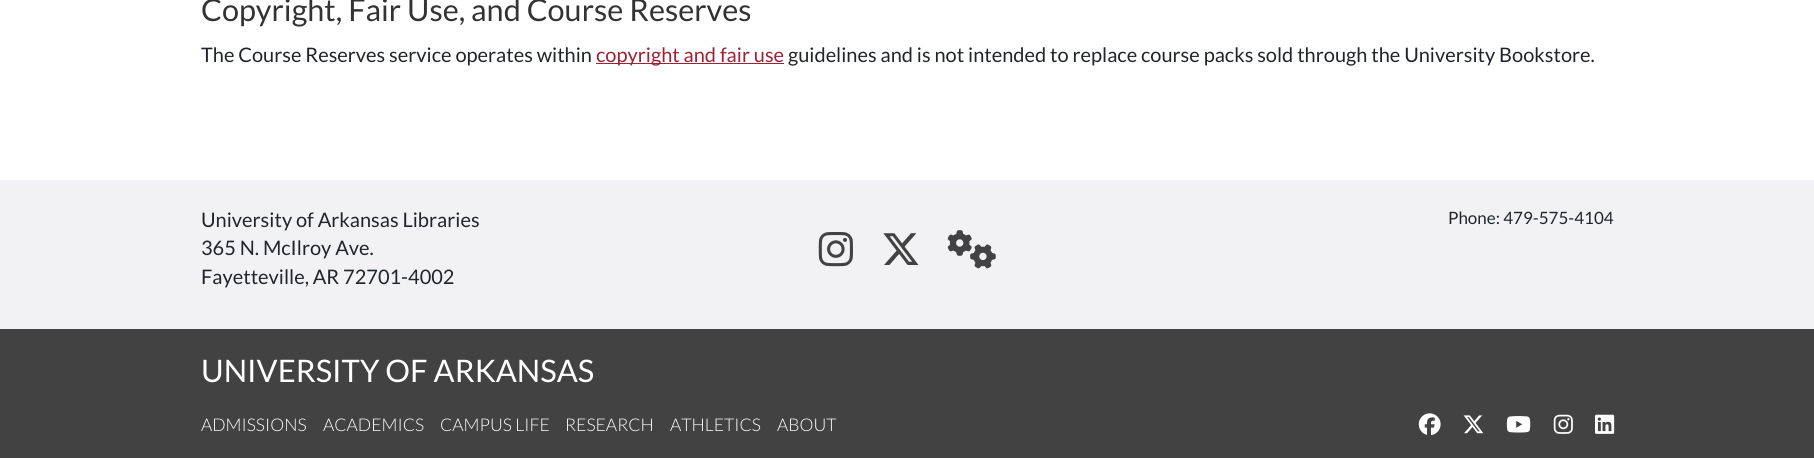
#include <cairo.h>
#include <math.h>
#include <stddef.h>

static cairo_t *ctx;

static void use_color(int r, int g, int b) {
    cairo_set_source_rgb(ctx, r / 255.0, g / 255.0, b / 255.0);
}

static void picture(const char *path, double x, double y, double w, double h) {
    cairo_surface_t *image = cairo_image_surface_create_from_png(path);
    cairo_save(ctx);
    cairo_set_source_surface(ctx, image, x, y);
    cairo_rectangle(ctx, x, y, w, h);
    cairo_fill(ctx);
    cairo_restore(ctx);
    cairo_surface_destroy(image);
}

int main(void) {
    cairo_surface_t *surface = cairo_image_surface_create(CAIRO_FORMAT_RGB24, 1814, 458);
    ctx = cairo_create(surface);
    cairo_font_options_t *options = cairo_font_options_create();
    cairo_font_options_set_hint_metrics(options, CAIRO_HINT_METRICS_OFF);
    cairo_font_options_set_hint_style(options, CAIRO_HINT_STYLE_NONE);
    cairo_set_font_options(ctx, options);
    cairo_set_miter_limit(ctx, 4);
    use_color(255, 255, 255);
    cairo_paint(ctx);
    cairo_select_font_face(ctx, "Lato", CAIRO_FONT_SLANT_NORMAL, CAIRO_FONT_WEIGHT_NORMAL);
    cairo_set_font_size(ctx, 30.6);
    use_color(51, 51, 51);
    cairo_move_to(ctx, 201, 21);
    cairo_show_text(ctx, "Copyright, Fair Use, and Course Reserves");
    cairo_set_font_size(ctx, 20);
    use_color(33, 37, 41);
    cairo_move_to(ctx, 201, 62);
    cairo_show_text(ctx, "The Course Reserves service operates within");
    use_color(157, 34, 53);
    cairo_rectangle(ctx, 596, 63, 188, 1);
    cairo_fill(ctx);
    cairo_move_to(ctx, 596, 62);
    cairo_show_text(ctx, "copyright and fair use");
    use_color(33, 37, 41);
    cairo_move_to(ctx, 788, 62);
    cairo_show_text(ctx, "guidelines and is not intended to replace course packs sold through the University Bookstore.");
    use_color(242, 242, 244);
    cairo_rectangle(ctx, 0, 180, 1814, 149);
    cairo_fill(ctx);
    use_color(33, 37, 41);
    cairo_move_to(ctx, 201, 227);
    cairo_show_text(ctx, "University of Arkansas Libraries");
    cairo_move_to(ctx, 201, 255);
    cairo_show_text(ctx, "365 N. McIlroy Ave.");
    cairo_move_to(ctx, 201, 284);
    cairo_show_text(ctx, "Fayetteville, AR 72701-4002");
    picture("img1.png", 818, 232, 35, 35);
    picture("img2.png", 883, 233, 36, 32);
    picture("img3.png", 947, 230, 49, 39);
    cairo_set_font_size(ctx, 17);
    cairo_move_to(ctx, 1448, 224);
    cairo_show_text(ctx, "Phone: 479-575-4104");
    use_color(66, 66, 66);
    cairo_rectangle(ctx, 0, 329, 1814, 129);
    cairo_fill(ctx);
    cairo_set_font_size(ctx, 31);
    use_color(255, 255, 255);
    cairo_move_to(ctx, 201, 382);
    cairo_show_text(ctx, "UNIVERSITY OF ARKANSAS");
    cairo_select_font_face(ctx, "Lato Light", CAIRO_FONT_SLANT_NORMAL, CAIRO_FONT_WEIGHT_NORMAL);
    cairo_set_font_size(ctx, 17.5);
    cairo_move_to(ctx, 201, 431);
    cairo_show_text(ctx, "ADMISSIONS");
    cairo_move_to(ctx, 323, 431);
    cairo_show_text(ctx, "ACADEMICS");
    cairo_move_to(ctx, 440, 431);
    cairo_show_text(ctx, "CAMPUS LIFE");
    cairo_move_to(ctx, 565, 431);
    cairo_show_text(ctx, "RESEARCH");
    cairo_move_to(ctx, 670, 431);
    cairo_show_text(ctx, "ATHLETICS");
    cairo_move_to(ctx, 777, 431);
    cairo_show_text(ctx, "ABOUT");
    picture("img4.png", 1418, 413, 23, 23);
    picture("img5.png", 1463, 415, 21, 19);
    picture("img6.png", 1506, 416, 25, 17);
    picture("img7.png", 1553, 414, 20, 20);
    picture("img8.png", 1595, 414, 20, 20);
    cairo_surface_write_to_png(surface, "result.png");
    cairo_font_options_destroy(options);
    cairo_destroy(ctx);
    cairo_surface_destroy(surface);
    return 0;
}
